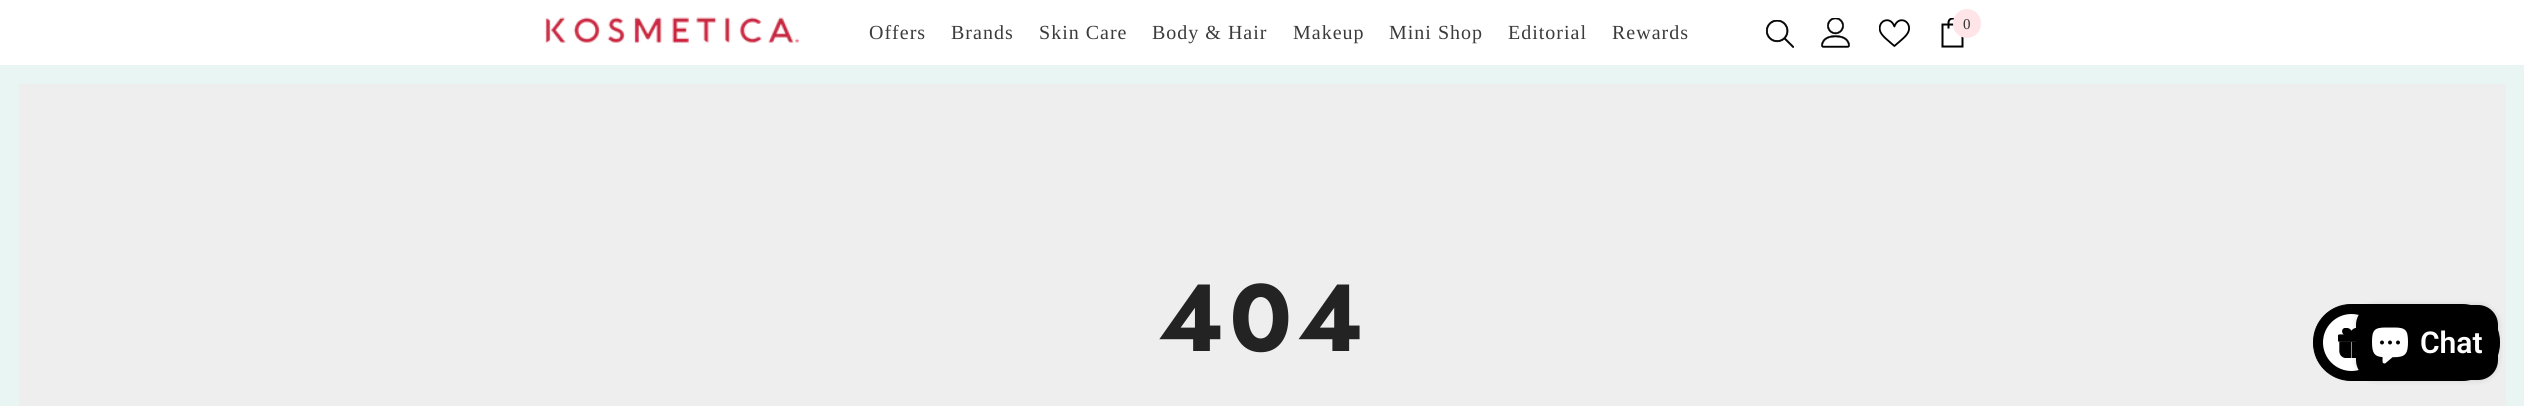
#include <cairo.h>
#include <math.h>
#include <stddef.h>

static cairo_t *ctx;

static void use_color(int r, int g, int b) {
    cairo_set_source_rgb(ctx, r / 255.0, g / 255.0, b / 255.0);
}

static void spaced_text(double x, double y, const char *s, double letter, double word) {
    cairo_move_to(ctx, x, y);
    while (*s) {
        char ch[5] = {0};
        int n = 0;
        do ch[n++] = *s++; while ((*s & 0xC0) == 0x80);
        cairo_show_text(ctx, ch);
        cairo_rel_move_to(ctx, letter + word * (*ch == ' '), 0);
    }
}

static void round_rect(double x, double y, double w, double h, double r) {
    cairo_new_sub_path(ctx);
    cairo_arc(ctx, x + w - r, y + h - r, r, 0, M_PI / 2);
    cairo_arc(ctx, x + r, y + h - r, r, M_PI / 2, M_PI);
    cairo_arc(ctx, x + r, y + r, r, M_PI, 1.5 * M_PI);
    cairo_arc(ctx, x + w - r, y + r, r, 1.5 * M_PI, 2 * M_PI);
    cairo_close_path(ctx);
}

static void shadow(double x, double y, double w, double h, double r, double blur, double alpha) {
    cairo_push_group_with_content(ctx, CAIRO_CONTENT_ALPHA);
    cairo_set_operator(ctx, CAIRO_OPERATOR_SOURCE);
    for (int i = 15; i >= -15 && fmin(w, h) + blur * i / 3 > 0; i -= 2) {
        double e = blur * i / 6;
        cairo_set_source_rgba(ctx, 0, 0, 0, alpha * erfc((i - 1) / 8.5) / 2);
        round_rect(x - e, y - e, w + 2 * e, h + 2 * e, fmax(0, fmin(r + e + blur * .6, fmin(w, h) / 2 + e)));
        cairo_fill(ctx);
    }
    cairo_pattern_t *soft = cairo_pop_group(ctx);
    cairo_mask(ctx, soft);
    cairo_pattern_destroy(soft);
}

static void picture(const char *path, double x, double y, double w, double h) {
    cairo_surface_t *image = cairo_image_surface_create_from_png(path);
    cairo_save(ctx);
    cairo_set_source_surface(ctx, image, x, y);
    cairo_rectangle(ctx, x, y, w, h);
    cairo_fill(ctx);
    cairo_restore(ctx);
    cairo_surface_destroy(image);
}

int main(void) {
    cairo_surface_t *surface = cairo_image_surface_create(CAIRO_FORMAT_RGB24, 2524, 406);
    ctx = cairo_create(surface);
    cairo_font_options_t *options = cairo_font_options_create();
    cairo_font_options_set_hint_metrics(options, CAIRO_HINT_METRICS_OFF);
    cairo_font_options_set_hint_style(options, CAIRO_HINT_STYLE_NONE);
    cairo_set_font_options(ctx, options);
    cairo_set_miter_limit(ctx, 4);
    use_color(233, 245, 242);
    cairo_paint(ctx);
    use_color(255, 255, 255);
    cairo_rectangle(ctx, 0, 0, 2524, 65);
    cairo_fill(ctx);
    picture("img1.png", 545, 17, 254, 26);
    cairo_select_font_face(ctx, "Liberation Serif", CAIRO_FONT_SLANT_NORMAL, CAIRO_FONT_WEIGHT_NORMAL);
    cairo_set_font_size(ctx, 20);
    use_color(60, 60, 60);
    spaced_text(869, 39, "Offers", 1, 0);
    spaced_text(951, 39, "Brands", 1, 0);
    spaced_text(1039, 39, "Skin Care", 1, 0);
    spaced_text(1152, 39, "Body & Hair", 1, 0);
    spaced_text(1293, 39, "Makeup", 1, 0);
    spaced_text(1389, 39, "Mini Shop", 1, 0);
    spaced_text(1508, 39, "Editorial", 1, 0);
    spaced_text(1612, 39, "Rewards", 1, 0);
    picture("img2.png", 1766, 20, 28, 28);
    picture("img3.png", 1821, 18, 29, 30);
    picture("img4.png", 1879, 19, 31, 28);
    picture("img5.png", 1941, 18, 23, 30);
    use_color(255, 229, 232);
    round_rect(1953, 9, 28, 29, 14);
    cairo_fill(ctx);
    cairo_set_font_size(ctx, 15);
    use_color(50, 50, 50);
    cairo_move_to(ctx, 1963, 29);
    cairo_show_text(ctx, "0");
    use_color(238, 238, 238);
    cairo_rectangle(ctx, 19, 84, 2487, 322);
    cairo_fill(ctx);
    cairo_select_font_face(ctx, "Jost", CAIRO_FONT_SLANT_NORMAL, CAIRO_FONT_WEIGHT_BOLD);
    cairo_set_font_size(ctx, 95);
    use_color(35, 35, 35);
    spaced_text(1158, 351, "404", 5, 0);
    use_color(0, 0, 0);
    round_rect(2313.5, 304.5, 186, 76, 37.5);
    cairo_fill_preserve(ctx);
    cairo_set_line_width(ctx, 1);
    cairo_stroke(ctx);
    use_color(255, 255, 255);
    cairo_arc(ctx, 2351.5, 342.5, 28.5, 0, 2 * M_PI);
    cairo_fill(ctx);
    picture("img6.png", 2338, 328, 18, 30);
    use_color(0, 0, 0);
    shadow(2356, 305, 142, 75, 20, 3, 0.15);
    use_color(0, 0, 0);
    round_rect(2356, 305, 142, 75, 20);
    cairo_fill(ctx);
    picture("img7.png", 2372, 327, 36, 37);
    cairo_select_font_face(ctx, "Roboto SemiBold", CAIRO_FONT_SLANT_NORMAL, CAIRO_FONT_WEIGHT_NORMAL);
    cairo_set_font_size(ctx, 30);
    use_color(255, 255, 255);
    cairo_move_to(ctx, 2420, 353);
    cairo_show_text(ctx, "Chat");
    cairo_surface_write_to_png(surface, "result.png");
    cairo_font_options_destroy(options);
    cairo_destroy(ctx);
    cairo_surface_destroy(surface);
    return 0;
}
